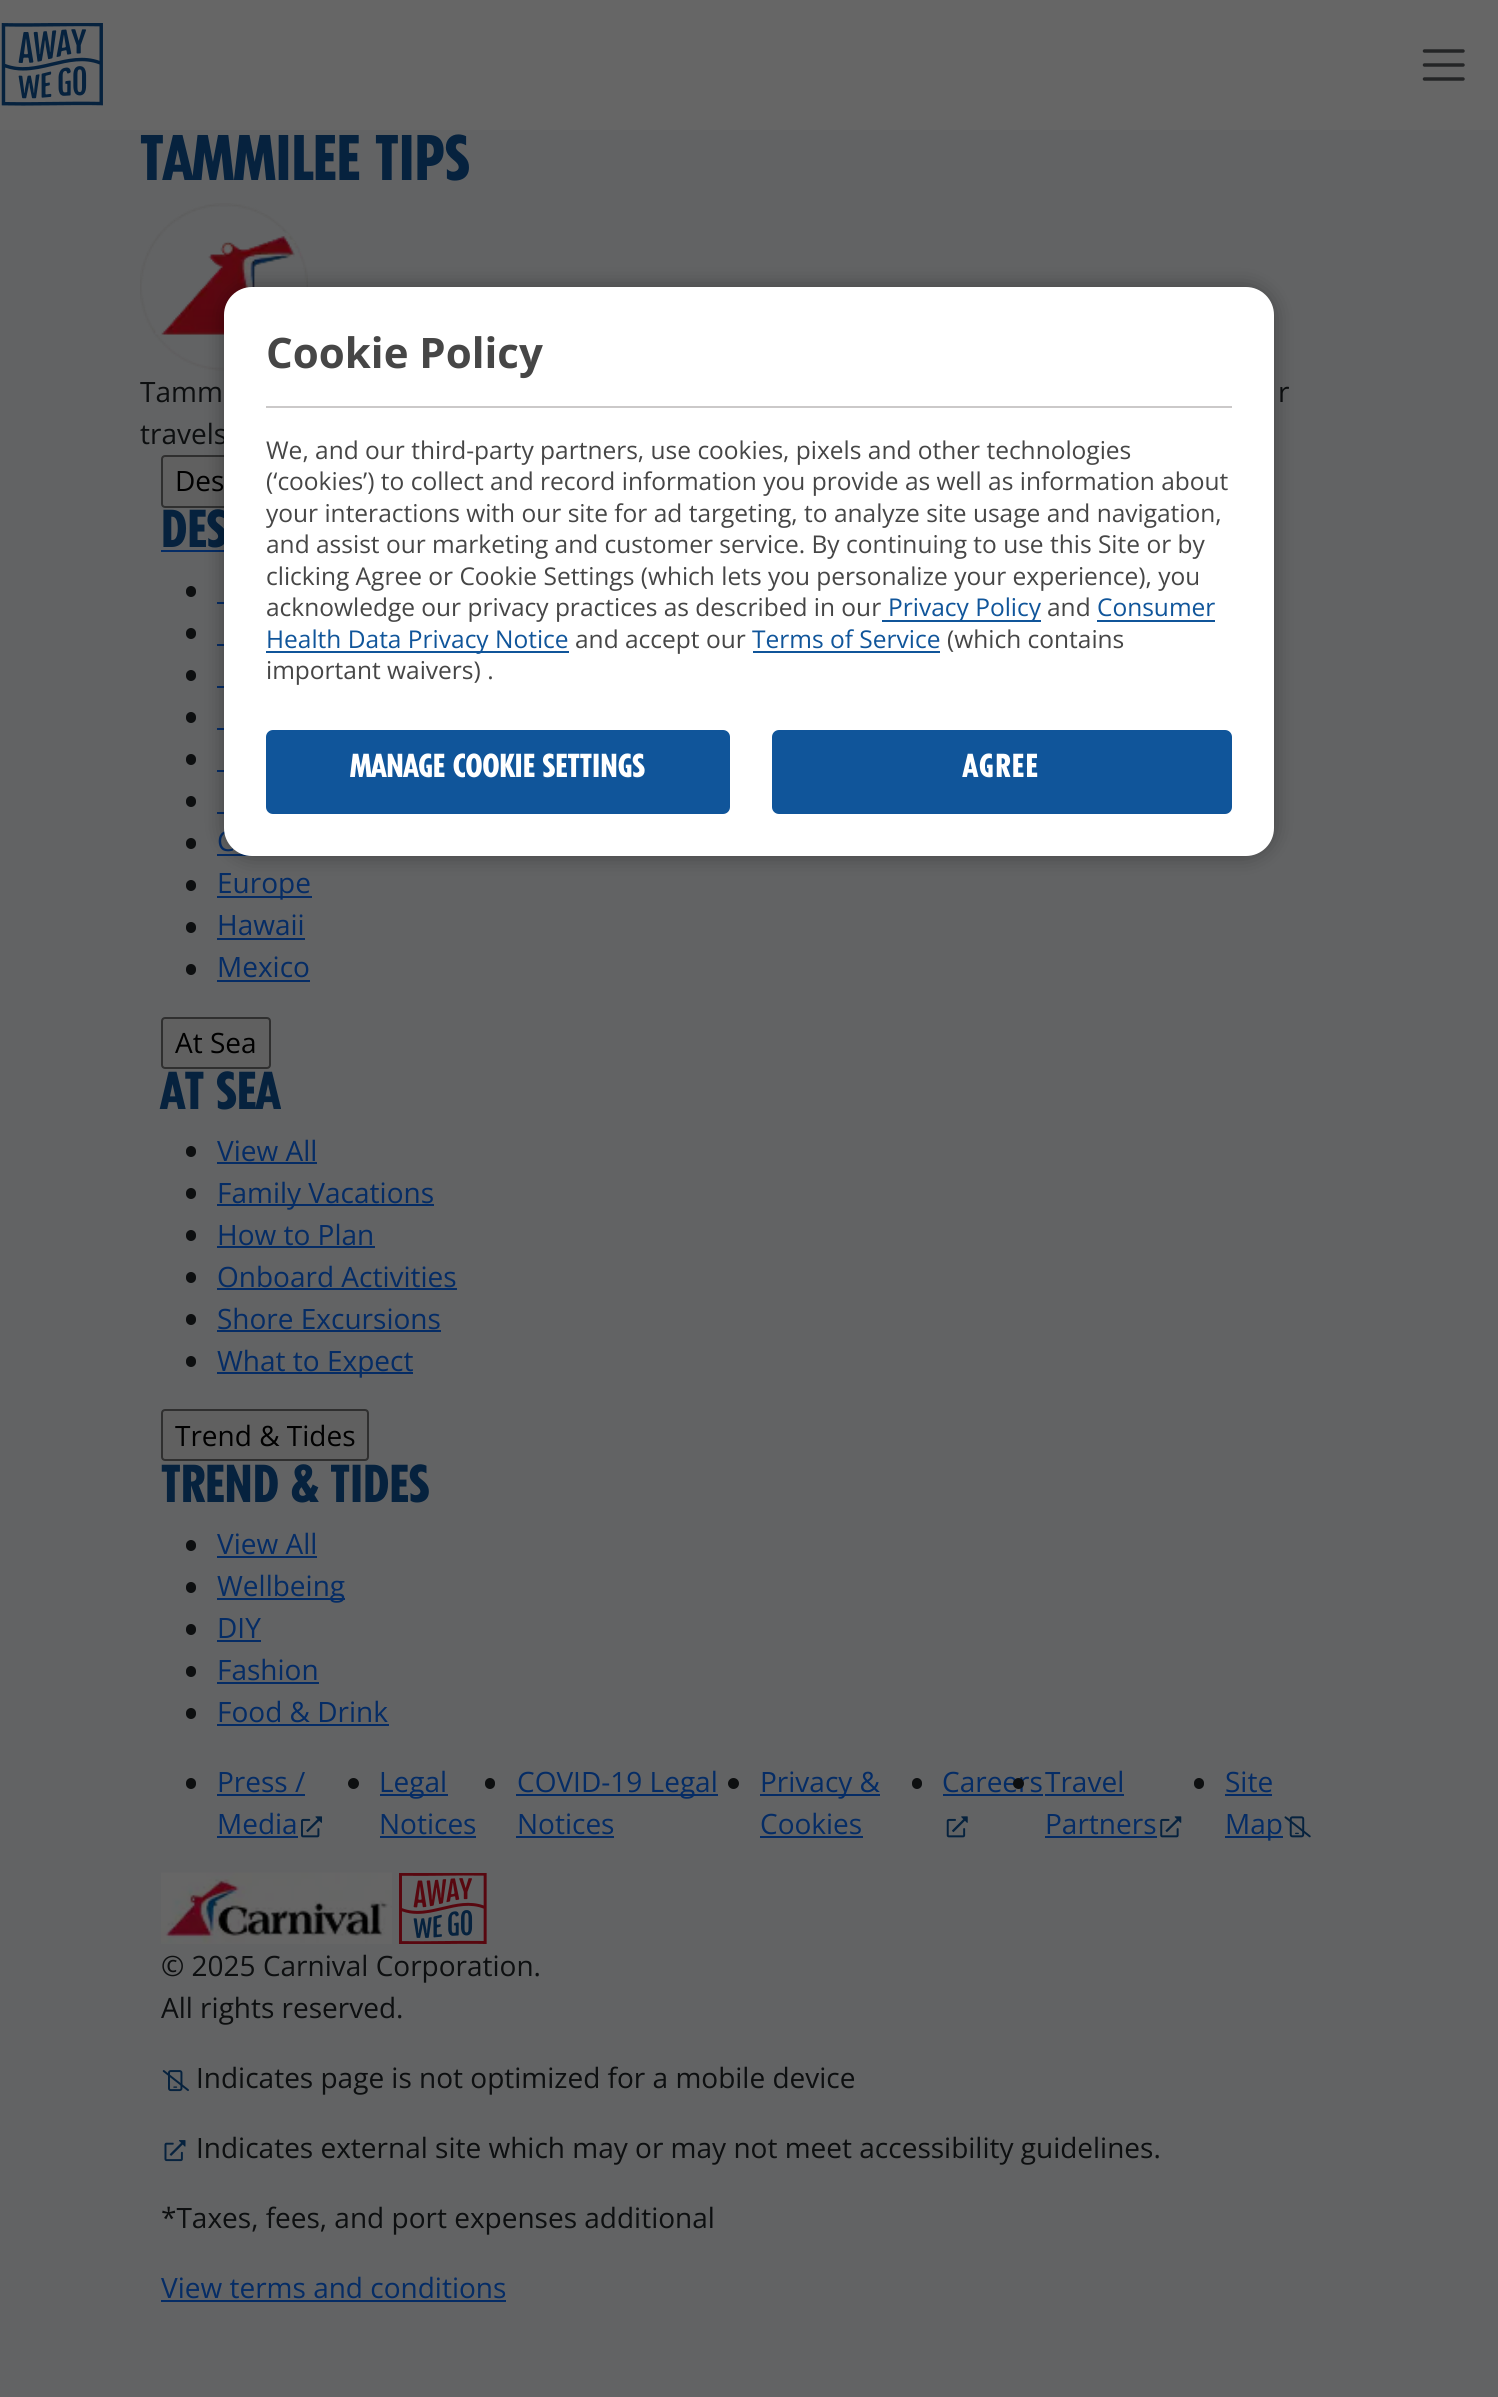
#include <cairo.h>
#include <math.h>
#include <stddef.h>

static cairo_t *ctx;

static void use_color(int r, int g, int b) {
    cairo_set_source_rgb(ctx, r / 255.0, g / 255.0, b / 255.0);
}

static void spaced_text(double x, double y, const char *s, double letter, double word) {
    cairo_move_to(ctx, x, y);
    while (*s) {
        char ch[5] = {0};
        int n = 0;
        do ch[n++] = *s++; while ((*s & 0xC0) == 0x80);
        cairo_show_text(ctx, ch);
        cairo_rel_move_to(ctx, letter + word * (*ch == ' '), 0);
    }
}

static void round_rect(double x, double y, double w, double h, double r) {
    cairo_new_sub_path(ctx);
    cairo_arc(ctx, x + w - r, y + h - r, r, 0, M_PI / 2);
    cairo_arc(ctx, x + r, y + h - r, r, M_PI / 2, M_PI);
    cairo_arc(ctx, x + r, y + r, r, M_PI, 1.5 * M_PI);
    cairo_arc(ctx, x + w - r, y + r, r, 1.5 * M_PI, 2 * M_PI);
    cairo_close_path(ctx);
}

static void shadow(double x, double y, double w, double h, double r, double blur, double alpha) {
    cairo_push_group_with_content(ctx, CAIRO_CONTENT_ALPHA);
    cairo_set_operator(ctx, CAIRO_OPERATOR_SOURCE);
    for (int i = 15; i >= -15 && fmin(w, h) + blur * i / 3 > 0; i -= 2) {
        double e = blur * i / 6;
        cairo_set_source_rgba(ctx, 0, 0, 0, alpha * erfc((i - 1) / 8.5) / 2);
        round_rect(x - e, y - e, w + 2 * e, h + 2 * e, fmax(0, fmin(r + e + blur * .6, fmin(w, h) / 2 + e)));
        cairo_fill(ctx);
    }
    cairo_pattern_t *soft = cairo_pop_group(ctx);
    cairo_mask(ctx, soft);
    cairo_pattern_destroy(soft);
}

static void picture(const char *path, double x, double y, double w, double h) {
    cairo_surface_t *image = cairo_image_surface_create_from_png(path);
    cairo_save(ctx);
    cairo_set_source_surface(ctx, image, x, y);
    cairo_rectangle(ctx, x, y, w, h);
    cairo_fill(ctx);
    cairo_restore(ctx);
    cairo_surface_destroy(image);
}

int main(void) {
    cairo_surface_t *surface = cairo_image_surface_create(CAIRO_FORMAT_RGB24, 1498, 2397);
    ctx = cairo_create(surface);
    cairo_font_options_t *options = cairo_font_options_create();
    cairo_font_options_set_hint_metrics(options, CAIRO_HINT_METRICS_OFF);
    cairo_font_options_set_hint_style(options, CAIRO_HINT_STYLE_NONE);
    cairo_set_font_options(ctx, options);
    cairo_set_miter_limit(ctx, 4);
    use_color(98, 99, 100);
    cairo_paint(ctx);
    use_color(102, 102, 102);
    cairo_rectangle(ctx, 0, 0, 1498, 130);
    cairo_fill(ctx);
    picture("img1.png", 1, 23, 102, 83);
    cairo_new_path(ctx);
    cairo_move_to(ctx, 1424.5, 51);
    cairo_line_to(ctx, 1463, 51);
    cairo_move_to(ctx, 1424.5, 65);
    cairo_line_to(ctx, 1463, 65);
    cairo_move_to(ctx, 1424.5, 79);
    cairo_line_to(ctx, 1463, 79);
    use_color(36, 37, 38);
    cairo_set_line_width(ctx, 3.5);
    cairo_set_line_cap(ctx, CAIRO_LINE_CAP_ROUND);
    cairo_stroke(ctx);
    cairo_select_font_face(ctx, "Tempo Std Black", CAIRO_FONT_SLANT_NORMAL, CAIRO_FONT_WEIGHT_NORMAL);
    cairo_set_font_size(ctx, 61);
    use_color(6, 34, 62);
    cairo_move_to(ctx, 140, 180);
    cairo_show_text(ctx, "TAMMILEE TIPS");
    picture("img2.png", 140, 203, 168, 168);
    cairo_select_font_face(ctx, "Open Sans", CAIRO_FONT_SLANT_NORMAL, CAIRO_FONT_WEIGHT_NORMAL);
    cairo_set_font_size(ctx, 28);
    use_color(13, 15, 16);
    cairo_move_to(ctx, 140, 402);
    cairo_show_text(ctx, "Tamm");
    cairo_move_to(ctx, 1278, 402);
    cairo_show_text(ctx, "r");
    cairo_move_to(ctx, 140, 444);
    cairo_show_text(ctx, "travels");
    use_color(96, 96, 96);
    round_rect(162, 456, 189, 51, 3);
    cairo_fill_preserve(ctx);
    use_color(47, 47, 47);
    cairo_set_line_width(ctx, 2);
    cairo_set_line_cap(ctx, CAIRO_LINE_CAP_BUTT);
    cairo_stroke(ctx);
    use_color(0, 0, 0);
    cairo_move_to(ctx, 175, 491);
    cairo_show_text(ctx, "Des");
    cairo_select_font_face(ctx, "Tempo Std Black", CAIRO_FONT_SLANT_NORMAL, CAIRO_FONT_WEIGHT_NORMAL);
    cairo_set_font_size(ctx, 50.5);
    use_color(6, 34, 62);
    cairo_move_to(ctx, 161, 547);
    cairo_show_text(ctx, "DES");
    use_color(5, 44, 101);
    cairo_rectangle(ctx, 161, 550, 63, 2);
    cairo_fill(ctx);
    use_color(13, 15, 16);
    round_rect(186, 586, 10, 11, 5);
    cairo_fill(ctx);
    use_color(5, 44, 101);
    cairo_rectangle(ctx, 217, 602, 7, 2);
    cairo_fill(ctx);
    use_color(13, 15, 16);
    round_rect(186, 628, 10, 11, 5);
    cairo_fill(ctx);
    use_color(5, 44, 101);
    cairo_rectangle(ctx, 217, 644, 7, 2);
    cairo_fill(ctx);
    use_color(13, 15, 16);
    round_rect(186, 670, 10, 11, 5);
    cairo_fill(ctx);
    use_color(5, 44, 101);
    cairo_rectangle(ctx, 217, 686, 7, 2);
    cairo_fill(ctx);
    use_color(13, 15, 16);
    round_rect(186, 712, 10, 11, 5);
    cairo_fill(ctx);
    use_color(5, 44, 101);
    cairo_rectangle(ctx, 217, 728, 7, 2);
    cairo_fill(ctx);
    use_color(13, 15, 16);
    round_rect(186, 754, 10, 11, 5);
    cairo_fill(ctx);
    use_color(5, 44, 101);
    cairo_rectangle(ctx, 217, 770, 7, 2);
    cairo_fill(ctx);
    use_color(13, 15, 16);
    round_rect(186, 796, 10, 11, 5);
    cairo_fill(ctx);
    use_color(5, 44, 101);
    cairo_rectangle(ctx, 217, 812, 7, 2);
    cairo_fill(ctx);
    use_color(13, 15, 16);
    round_rect(186, 838, 10, 11, 5);
    cairo_fill(ctx);
    cairo_select_font_face(ctx, "Open Sans", CAIRO_FONT_SLANT_NORMAL, CAIRO_FONT_WEIGHT_NORMAL);
    cairo_set_font_size(ctx, 28);
    use_color(5, 44, 101);
    cairo_move_to(ctx, 217, 851);
    cairo_show_text(ctx, "C");
    cairo_rectangle(ctx, 217, 854, 35, 2);
    cairo_fill(ctx);
    use_color(13, 15, 16);
    round_rect(186, 880, 10, 11, 5);
    cairo_fill(ctx);
    use_color(5, 44, 101);
    cairo_rectangle(ctx, 217, 896, 95, 2);
    cairo_fill(ctx);
    cairo_move_to(ctx, 217, 893);
    cairo_show_text(ctx, "Europe");
    use_color(13, 15, 16);
    round_rect(186, 922, 10, 11, 5);
    cairo_fill(ctx);
    use_color(5, 44, 101);
    cairo_move_to(ctx, 217, 935);
    cairo_show_text(ctx, "Hawaii");
    cairo_rectangle(ctx, 217, 938, 88, 2);
    cairo_fill(ctx);
    use_color(13, 15, 16);
    round_rect(186, 964, 10, 11, 5);
    cairo_fill(ctx);
    use_color(5, 44, 101);
    cairo_move_to(ctx, 217, 977);
    cairo_show_text(ctx, "Mexico");
    cairo_rectangle(ctx, 217, 980, 93, 2);
    cairo_fill(ctx);
    use_color(96, 96, 96);
    round_rect(162, 1018, 108, 50, 3);
    cairo_fill_preserve(ctx);
    use_color(47, 47, 47);
    cairo_stroke(ctx);
    use_color(0, 0, 0);
    cairo_move_to(ctx, 175, 1053);
    cairo_show_text(ctx, "At Sea");
    cairo_select_font_face(ctx, "Tempo Std Black", CAIRO_FONT_SLANT_NORMAL, CAIRO_FONT_WEIGHT_NORMAL);
    cairo_set_font_size(ctx, 50.5);
    use_color(6, 34, 62);
    cairo_move_to(ctx, 161, 1109);
    cairo_show_text(ctx, "AT SEA");
    use_color(13, 15, 16);
    round_rect(186, 1146, 10, 11, 5);
    cairo_fill(ctx);
    cairo_select_font_face(ctx, "Open Sans", CAIRO_FONT_SLANT_NORMAL, CAIRO_FONT_WEIGHT_NORMAL);
    cairo_set_font_size(ctx, 28);
    use_color(5, 44, 101);
    cairo_move_to(ctx, 217, 1161);
    cairo_show_text(ctx, "View All");
    cairo_rectangle(ctx, 217, 1162, 100, 2);
    cairo_fill(ctx);
    use_color(13, 15, 16);
    round_rect(186, 1188, 10, 11, 5);
    cairo_fill(ctx);
    use_color(5, 44, 101);
    cairo_rectangle(ctx, 217, 1204, 217, 2);
    cairo_fill(ctx);
    cairo_move_to(ctx, 217, 1203);
    cairo_show_text(ctx, "Family Vacations");
    use_color(13, 15, 16);
    round_rect(186, 1230, 10, 11, 5);
    cairo_fill(ctx);
    use_color(5, 44, 101);
    cairo_move_to(ctx, 217, 1245);
    cairo_show_text(ctx, "How to Plan");
    cairo_rectangle(ctx, 217, 1246, 158, 2);
    cairo_fill(ctx);
    use_color(13, 15, 16);
    round_rect(186, 1272, 10, 11, 5);
    cairo_fill(ctx);
    use_color(5, 44, 101);
    cairo_move_to(ctx, 217, 1287);
    cairo_show_text(ctx, "Onboard Activities");
    cairo_rectangle(ctx, 217, 1288, 240, 2);
    cairo_fill(ctx);
    use_color(13, 15, 16);
    round_rect(186, 1314, 10, 11, 5);
    cairo_fill(ctx);
    use_color(5, 44, 101);
    cairo_move_to(ctx, 217, 1329);
    cairo_show_text(ctx, "Shore Excursions");
    cairo_rectangle(ctx, 217, 1330, 224, 2);
    cairo_fill(ctx);
    use_color(13, 15, 16);
    round_rect(186, 1356, 10, 11, 5);
    cairo_fill(ctx);
    use_color(5, 44, 101);
    cairo_rectangle(ctx, 217, 1372, 196, 2);
    cairo_fill(ctx);
    cairo_move_to(ctx, 217, 1371);
    cairo_show_text(ctx, "What to Expect");
    use_color(96, 96, 96);
    round_rect(162, 1410, 206, 50, 3);
    cairo_fill_preserve(ctx);
    use_color(47, 47, 47);
    cairo_stroke(ctx);
    use_color(0, 0, 0);
    cairo_move_to(ctx, 175, 1446);
    cairo_show_text(ctx, "Trend & Tides");
    cairo_select_font_face(ctx, "Tempo Std Black", CAIRO_FONT_SLANT_NORMAL, CAIRO_FONT_WEIGHT_NORMAL);
    cairo_set_font_size(ctx, 50.5);
    use_color(6, 34, 62);
    cairo_move_to(ctx, 161, 1502);
    cairo_show_text(ctx, "TREND & TIDES");
    use_color(13, 15, 16);
    round_rect(186, 1540, 10, 11, 5);
    cairo_fill(ctx);
    cairo_select_font_face(ctx, "Open Sans", CAIRO_FONT_SLANT_NORMAL, CAIRO_FONT_WEIGHT_NORMAL);
    cairo_set_font_size(ctx, 28);
    use_color(5, 44, 101);
    cairo_move_to(ctx, 217, 1554);
    cairo_show_text(ctx, "View All");
    cairo_rectangle(ctx, 217, 1556, 100, 2);
    cairo_fill(ctx);
    use_color(13, 15, 16);
    round_rect(186, 1582, 10, 11, 5);
    cairo_fill(ctx);
    use_color(5, 44, 101);
    cairo_rectangle(ctx, 217, 1598, 128, 2);
    cairo_fill(ctx);
    cairo_move_to(ctx, 217, 1596);
    cairo_show_text(ctx, "Wellbeing");
    use_color(13, 15, 16);
    round_rect(186, 1624, 10, 11, 5);
    cairo_fill(ctx);
    use_color(5, 44, 101);
    cairo_move_to(ctx, 217, 1638);
    cairo_show_text(ctx, "DIY");
    cairo_rectangle(ctx, 217, 1640, 44, 2);
    cairo_fill(ctx);
    use_color(13, 15, 16);
    round_rect(186, 1666, 10, 11, 5);
    cairo_fill(ctx);
    use_color(5, 44, 101);
    cairo_move_to(ctx, 217, 1680);
    cairo_show_text(ctx, "Fashion");
    cairo_rectangle(ctx, 217, 1682, 102, 2);
    cairo_fill(ctx);
    use_color(13, 15, 16);
    round_rect(186, 1708, 10, 11, 5);
    cairo_fill(ctx);
    use_color(5, 44, 101);
    cairo_move_to(ctx, 217, 1722);
    cairo_show_text(ctx, "Food & Drink");
    cairo_rectangle(ctx, 217, 1724, 172, 2);
    cairo_fill(ctx);
    use_color(13, 15, 16);
    round_rect(186, 1778, 10, 11, 5);
    cairo_fill(ctx);
    use_color(5, 44, 101);
    cairo_move_to(ctx, 217, 1792);
    cairo_show_text(ctx, "Press /");
    cairo_rectangle(ctx, 217, 1794, 88, 2);
    cairo_fill(ctx);
    cairo_move_to(ctx, 217, 1834);
    cairo_show_text(ctx, "Media");
    cairo_rectangle(ctx, 217, 1836, 81, 2);
    cairo_fill(ctx);
    picture("img3.png", 301, 1816, 21, 22);
    use_color(13, 15, 16);
    cairo_arc(ctx, 353.5, 1783.5, 5.5, 0, 2 * M_PI);
    cairo_fill(ctx);
    use_color(5, 44, 101);
    cairo_rectangle(ctx, 380, 1794, 68, 2);
    cairo_fill(ctx);
    cairo_move_to(ctx, 379, 1792);
    cairo_show_text(ctx, "Legal");
    cairo_move_to(ctx, 379, 1834);
    cairo_show_text(ctx, "Notices");
    cairo_rectangle(ctx, 380, 1836, 96, 2);
    cairo_fill(ctx);
    use_color(13, 15, 16);
    round_rect(485, 1778, 10, 11, 5);
    cairo_fill(ctx);
    use_color(5, 44, 101);
    cairo_rectangle(ctx, 516, 1794, 202, 2);
    cairo_fill(ctx);
    cairo_move_to(ctx, 517, 1792);
    cairo_show_text(ctx, "COVID-19 Legal");
    cairo_move_to(ctx, 517, 1834);
    cairo_show_text(ctx, "Notices");
    cairo_rectangle(ctx, 516, 1836, 98, 2);
    cairo_fill(ctx);
    use_color(13, 15, 16);
    cairo_arc(ctx, 733.5, 1783.5, 5.5, 0, 2 * M_PI);
    cairo_fill(ctx);
    use_color(5, 44, 101);
    cairo_rectangle(ctx, 760, 1794, 120, 2);
    cairo_fill(ctx);
    cairo_move_to(ctx, 760, 1792);
    cairo_show_text(ctx, "Privacy &");
    cairo_move_to(ctx, 760, 1834);
    cairo_show_text(ctx, "Cookies");
    cairo_rectangle(ctx, 760, 1836, 103, 2);
    cairo_fill(ctx);
    use_color(13, 15, 16);
    round_rect(912, 1778, 10, 11, 5);
    cairo_fill(ctx);
    use_color(5, 44, 101);
    cairo_move_to(ctx, 942, 1792);
    cairo_show_text(ctx, "Careers");
    cairo_rectangle(ctx, 943, 1794, 100, 2);
    cairo_fill(ctx);
    picture("img4.png", 946, 1816, 22, 22);
    use_color(13, 15, 16);
    cairo_arc(ctx, 1018.5, 1783.5, 5.5, 0, 2 * M_PI);
    cairo_fill(ctx);
    use_color(5, 44, 101);
    cairo_move_to(ctx, 1045, 1792);
    cairo_show_text(ctx, "Travel");
    cairo_rectangle(ctx, 1045, 1794, 79, 2);
    cairo_fill(ctx);
    cairo_move_to(ctx, 1045, 1834);
    cairo_show_text(ctx, "Partners");
    cairo_rectangle(ctx, 1045, 1836, 112, 2);
    cairo_fill(ctx);
    picture("img5.png", 1160, 1816, 22, 22);
    use_color(13, 15, 16);
    round_rect(1194, 1778, 10, 11, 5);
    cairo_fill(ctx);
    use_color(5, 44, 101);
    cairo_move_to(ctx, 1225, 1792);
    cairo_show_text(ctx, "Site");
    cairo_rectangle(ctx, 1225, 1794, 47, 2);
    cairo_fill(ctx);
    cairo_rectangle(ctx, 1225, 1836, 58, 2);
    cairo_fill(ctx);
    cairo_move_to(ctx, 1225, 1834);
    cairo_show_text(ctx, "Map");
    picture("img6.png", 1284, 1816, 27, 22);
    picture("img7.png", 161, 1872, 231, 72);
    picture("img8.png", 399, 1873, 88, 71);
    use_color(13, 15, 16);
    cairo_move_to(ctx, 161, 1976);
    cairo_show_text(ctx, "© 2025 Carnival Corporation.");
    cairo_move_to(ctx, 161, 2018);
    cairo_show_text(ctx, "All rights reserved.");
    picture("img9.png", 162, 2070, 27, 22);
    cairo_move_to(ctx, 196, 2088);
    cairo_show_text(ctx, "Indicates page is not optimized for a mobile device");
    picture("img10.png", 164, 2140, 22, 22);
    cairo_move_to(ctx, 196, 2158);
    cairo_show_text(ctx, "Indicates external site which may or may not meet accessibility guidelines.");
    cairo_move_to(ctx, 161, 2228);
    cairo_show_text(ctx, "*Taxes, fees, and port expenses additional");
    use_color(5, 44, 101);
    cairo_move_to(ctx, 161, 2298);
    cairo_show_text(ctx, "View terms and conditions");
    cairo_rectangle(ctx, 161, 2300, 345, 2);
    cairo_fill(ctx);
    use_color(0, 0, 0);
    shadow(224, 287, 1050, 569, 28, 10.5, 0.32);
    use_color(255, 255, 255);
    round_rect(224, 287, 1050, 569, 28);
    cairo_fill(ctx);
    use_color(203, 201, 201);
    cairo_rectangle(ctx, 266, 406, 966, 2);
    cairo_fill(ctx);
    cairo_select_font_face(ctx, "Open Sans", CAIRO_FONT_SLANT_NORMAL, CAIRO_FONT_WEIGHT_BOLD);
    cairo_set_font_size(ctx, 42);
    use_color(70, 70, 70);
    cairo_move_to(ctx, 266, 368);
    cairo_show_text(ctx, "Cookie Policy");
    cairo_select_font_face(ctx, "Open Sans", CAIRO_FONT_SLANT_NORMAL, CAIRO_FONT_WEIGHT_NORMAL);
    cairo_set_font_size(ctx, 24.5);
    cairo_move_to(ctx, 266, 459);
    cairo_show_text(ctx, "We, and our third-party partners, use cookies, pixels and other technologies");
    cairo_move_to(ctx, 266, 490);
    cairo_show_text(ctx, "(‘cookies’) to collect and record information you provide as well as information about");
    cairo_move_to(ctx, 266, 522);
    cairo_show_text(ctx, "your interactions with our site for ad targeting, to analyze site usage and navigation,");
    cairo_move_to(ctx, 266, 553);
    cairo_show_text(ctx, "and assist our marketing and customer service. By continuing to use this Site or by");
    cairo_move_to(ctx, 266, 585);
    cairo_show_text(ctx, "clicking Agree or Cookie Settings (which lets you personalize your experience), you");
    cairo_move_to(ctx, 266, 616);
    cairo_show_text(ctx, "acknowledge our privacy practices as described in our");
    use_color(16, 85, 154);
    cairo_rectangle(ctx, 882, 620, 159, 2);
    cairo_fill(ctx);
    cairo_move_to(ctx, 888, 616);
    cairo_show_text(ctx, "Privacy Policy");
    use_color(70, 70, 70);
    cairo_move_to(ctx, 1047, 616);
    cairo_show_text(ctx, "and");
    use_color(16, 85, 154);
    cairo_move_to(ctx, 1097, 616);
    cairo_show_text(ctx, "Consumer");
    cairo_rectangle(ctx, 1097, 620, 118, 2);
    cairo_fill(ctx);
    cairo_rectangle(ctx, 266, 651, 303, 2);
    cairo_fill(ctx);
    cairo_move_to(ctx, 266, 648);
    cairo_show_text(ctx, "Health Data Privacy Notice");
    use_color(70, 70, 70);
    cairo_move_to(ctx, 575, 648);
    cairo_show_text(ctx, "and accept our");
    use_color(16, 85, 154);
    cairo_move_to(ctx, 752, 648);
    cairo_show_text(ctx, "Terms of Service");
    cairo_rectangle(ctx, 753, 651, 187, 2);
    cairo_fill(ctx);
    use_color(70, 70, 70);
    cairo_move_to(ctx, 947, 648);
    cairo_show_text(ctx, "(which contains");
    cairo_move_to(ctx, 266, 679);
    cairo_show_text(ctx, "important waivers) .");
    use_color(16, 85, 154);
    round_rect(267, 731, 462, 82, 6);
    cairo_fill_preserve(ctx);
    cairo_stroke(ctx);
    cairo_select_font_face(ctx, "Tempo Std Black", CAIRO_FONT_SLANT_NORMAL, CAIRO_FONT_WEIGHT_NORMAL);
    cairo_set_font_size(ctx, 31.5);
    use_color(255, 255, 255);
    cairo_move_to(ctx, 350, 777);
    cairo_show_text(ctx, "MANAGE COOKIE SETTINGS");
    use_color(16, 85, 154);
    round_rect(773, 731, 458, 82, 6);
    cairo_fill_preserve(ctx);
    cairo_stroke(ctx);
    use_color(255, 255, 255);
    spaced_text(963, 777, "AGREE", 1.5, 0);
    cairo_surface_write_to_png(surface, "result.png");
    cairo_font_options_destroy(options);
    cairo_destroy(ctx);
    cairo_surface_destroy(surface);
    return 0;
}
